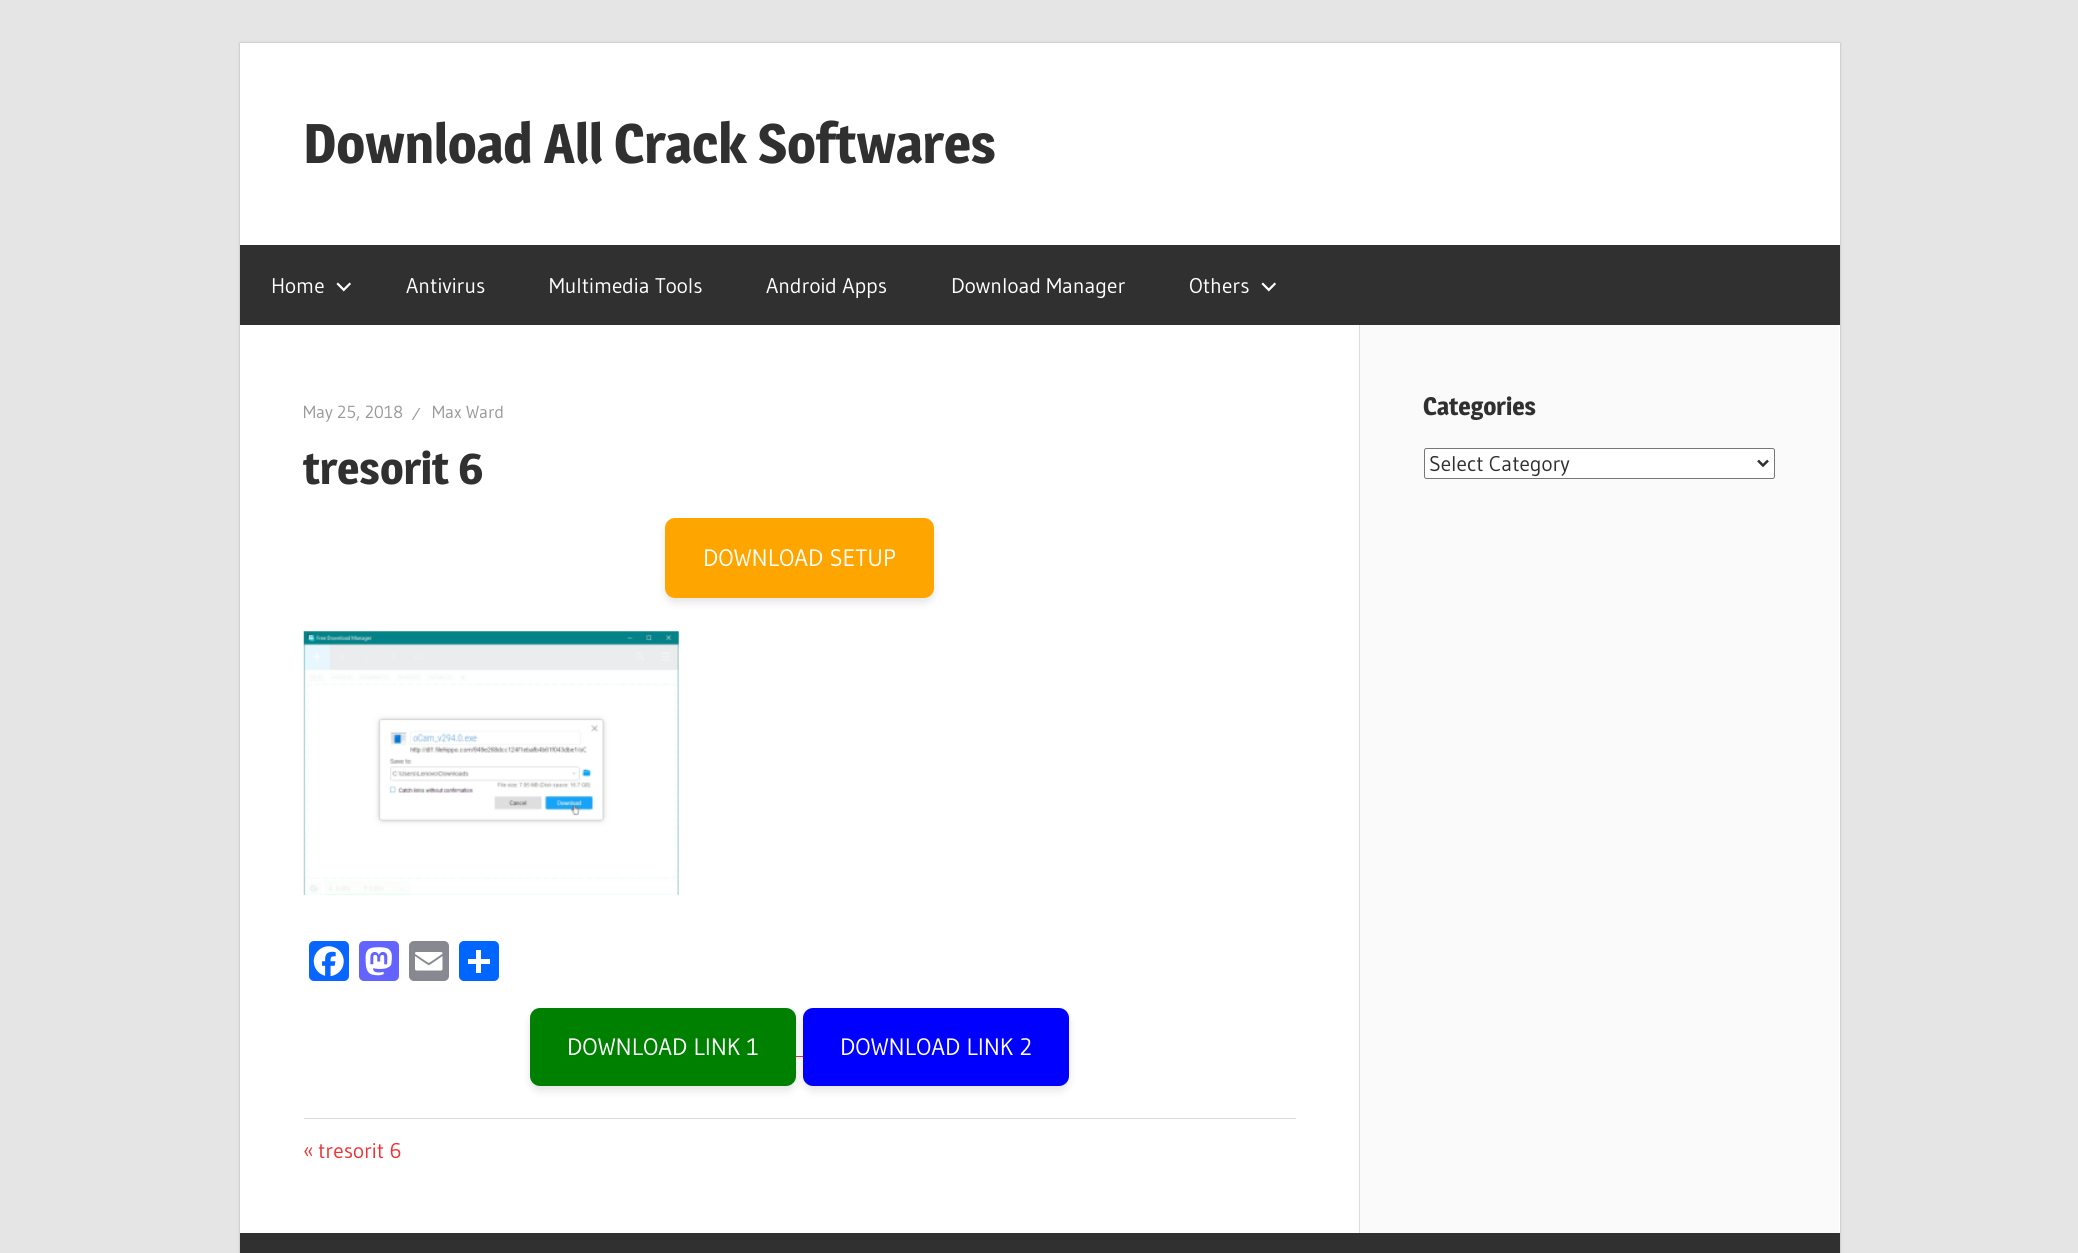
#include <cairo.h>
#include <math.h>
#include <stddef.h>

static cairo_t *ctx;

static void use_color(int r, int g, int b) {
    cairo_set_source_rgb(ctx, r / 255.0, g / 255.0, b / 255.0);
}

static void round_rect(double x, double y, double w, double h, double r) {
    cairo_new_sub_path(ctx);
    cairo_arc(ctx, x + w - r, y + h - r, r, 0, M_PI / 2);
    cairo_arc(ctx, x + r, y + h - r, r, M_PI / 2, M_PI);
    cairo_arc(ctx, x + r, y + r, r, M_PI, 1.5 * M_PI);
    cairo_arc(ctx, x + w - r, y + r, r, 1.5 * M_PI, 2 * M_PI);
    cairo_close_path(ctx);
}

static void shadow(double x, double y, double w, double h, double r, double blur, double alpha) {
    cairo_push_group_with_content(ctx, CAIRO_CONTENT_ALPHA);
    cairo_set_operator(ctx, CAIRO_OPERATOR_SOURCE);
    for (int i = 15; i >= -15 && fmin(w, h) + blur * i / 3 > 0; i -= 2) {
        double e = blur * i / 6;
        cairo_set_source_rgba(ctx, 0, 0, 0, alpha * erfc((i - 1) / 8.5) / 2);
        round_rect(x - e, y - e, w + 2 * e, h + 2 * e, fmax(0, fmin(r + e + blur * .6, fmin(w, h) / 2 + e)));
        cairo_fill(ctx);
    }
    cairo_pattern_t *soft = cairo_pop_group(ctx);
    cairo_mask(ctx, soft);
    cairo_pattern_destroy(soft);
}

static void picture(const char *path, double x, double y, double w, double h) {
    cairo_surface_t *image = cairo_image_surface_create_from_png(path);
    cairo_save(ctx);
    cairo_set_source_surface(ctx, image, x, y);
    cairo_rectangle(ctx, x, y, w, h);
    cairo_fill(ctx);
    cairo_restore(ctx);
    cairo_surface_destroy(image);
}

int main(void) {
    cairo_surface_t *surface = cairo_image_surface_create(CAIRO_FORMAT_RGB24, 2078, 1253);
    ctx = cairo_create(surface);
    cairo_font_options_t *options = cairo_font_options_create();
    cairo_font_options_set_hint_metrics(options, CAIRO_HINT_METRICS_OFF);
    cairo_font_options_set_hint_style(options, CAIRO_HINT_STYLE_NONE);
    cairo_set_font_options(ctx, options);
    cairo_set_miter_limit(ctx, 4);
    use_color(229, 229, 229);
    cairo_paint(ctx);
    use_color(170, 170, 170);
    shadow(240, 43, 1600, 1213, 0, 1, 1);
    use_color(255, 255, 255);
    cairo_rectangle(ctx, 240, 43, 1600, 1190);
    cairo_fill(ctx);
    cairo_select_font_face(ctx, "Magra", CAIRO_FONT_SLANT_NORMAL, CAIRO_FONT_WEIGHT_BOLD);
    cairo_set_font_size(ctx, 55);
    use_color(48, 48, 48);
    cairo_move_to(ctx, 303, 163);
    cairo_show_text(ctx, "Download All Crack Softwares");
    cairo_rectangle(ctx, 240, 245, 1600, 80);
    cairo_fill(ctx);
    cairo_select_font_face(ctx, "Gudea", CAIRO_FONT_SLANT_NORMAL, CAIRO_FONT_WEIGHT_NORMAL);
    cairo_set_font_size(ctx, 21.25);
    use_color(255, 255, 255);
    cairo_move_to(ctx, 271, 293);
    cairo_show_text(ctx, "Home");
    picture("img1.png", 336, 282, 15, 10);
    cairo_move_to(ctx, 406, 293);
    cairo_show_text(ctx, "Antivirus");
    cairo_move_to(ctx, 549, 293);
    cairo_show_text(ctx, "Multimedia Tools");
    cairo_move_to(ctx, 766, 293);
    cairo_show_text(ctx, "Android Apps");
    cairo_move_to(ctx, 951, 293);
    cairo_show_text(ctx, "Download Manager");
    cairo_move_to(ctx, 1189, 293);
    cairo_show_text(ctx, "Others");
    picture("img2.png", 1261, 282, 15, 10);
    cairo_set_font_size(ctx, 17.5);
    use_color(153, 153, 153);
    cairo_move_to(ctx, 303, 418);
    cairo_show_text(ctx, "May 25, 2018");
    cairo_move_to(ctx, 412, 420);
    cairo_show_text(ctx, "⁄");
    cairo_move_to(ctx, 432, 418);
    cairo_show_text(ctx, "Max Ward");
    cairo_select_font_face(ctx, "Magra", CAIRO_FONT_SLANT_NORMAL, CAIRO_FONT_WEIGHT_BOLD);
    cairo_set_font_size(ctx, 45);
    use_color(48, 48, 48);
    cairo_move_to(ctx, 303, 484);
    cairo_show_text(ctx, "tresorit 6");
    use_color(0, 0, 0);
    shadow(665, 523, 269, 80, 10, 4, 0.1);
    use_color(255, 165, 0);
    round_rect(665, 518, 269, 80, 10);
    cairo_fill(ctx);
    cairo_select_font_face(ctx, "Gudea", CAIRO_FONT_SLANT_NORMAL, CAIRO_FONT_WEIGHT_NORMAL);
    cairo_set_font_size(ctx, 23.75);
    use_color(255, 255, 255);
    cairo_move_to(ctx, 703, 566);
    cairo_show_text(ctx, "DOWNLOAD SETUP");
    picture("img3.png", 303, 631, 376, 264);
    use_color(8, 102, 255);
    round_rect(309, 941, 40, 40, 5);
    cairo_fill(ctx);
    picture("img4.png", 313, 946, 31, 31);
    use_color(99, 100, 255);
    round_rect(359, 941, 40, 40, 5);
    cairo_fill(ctx);
    picture("img5.png", 365, 947, 27, 29);
    use_color(136, 137, 144);
    round_rect(409, 941, 40, 40, 5);
    cairo_fill(ctx);
    picture("img6.png", 415, 952, 28, 19);
    use_color(1, 102, 255);
    round_rect(459, 941, 40, 40, 5);
    cairo_fill(ctx);
    use_color(255, 255, 255);
    cairo_rectangle(ctx, 476, 950, 5, 23);
    cairo_fill(ctx);
    cairo_rectangle(ctx, 468, 959, 22, 5);
    cairo_fill(ctx);
    use_color(0, 0, 0);
    shadow(530, 1013, 266, 78, 10, 4, 0.1);
    use_color(0, 128, 0);
    round_rect(530, 1008, 266, 78, 10);
    cairo_fill(ctx);
    use_color(255, 255, 255);
    cairo_move_to(ctx, 567, 1055);
    cairo_show_text(ctx, "DOWNLOAD LINK 1");
    use_color(238, 51, 51);
    cairo_rectangle(ctx, 796, 1056, 7, 1);
    cairo_fill(ctx);
    use_color(0, 0, 0);
    shadow(803, 1013, 266, 78, 10, 4, 0.1);
    use_color(0, 0, 255);
    round_rect(803, 1008, 266, 78, 10);
    cairo_fill(ctx);
    use_color(255, 255, 255);
    cairo_move_to(ctx, 840, 1055);
    cairo_show_text(ctx, "DOWNLOAD LINK 2");
    use_color(221, 221, 221);
    cairo_rectangle(ctx, 304, 1118, 992, 1);
    cairo_fill(ctx);
    cairo_set_font_size(ctx, 21.25);
    use_color(238, 51, 51);
    cairo_move_to(ctx, 303, 1158);
    cairo_show_text(ctx, "«");
    cairo_move_to(ctx, 318, 1158);
    cairo_show_text(ctx, "tresorit 6");
    use_color(250, 250, 250);
    cairo_rectangle(ctx, 1360, 325, 479, 908);
    cairo_fill(ctx);
    use_color(221, 221, 221);
    cairo_rectangle(ctx, 1359, 325, 1, 908);
    cairo_fill(ctx);
    cairo_select_font_face(ctx, "Magra", CAIRO_FONT_SLANT_NORMAL, CAIRO_FONT_WEIGHT_BOLD);
    cairo_set_font_size(ctx, 25);
    use_color(48, 48, 48);
    cairo_move_to(ctx, 1423, 415);
    cairo_show_text(ctx, "Categories");
    use_color(255, 255, 255);
    round_rect(1424.5, 448.5, 350, 30, 2);
    cairo_fill_preserve(ctx);
    use_color(118, 118, 118);
    cairo_set_line_width(ctx, 1);
    cairo_stroke(ctx);
    cairo_new_path(ctx);
    cairo_move_to(ctx, 1758, 460.5);
    cairo_line_to(ctx, 1763, 465.5);
    cairo_line_to(ctx, 1768, 460.5);
    use_color(48, 48, 48);
    cairo_set_line_width(ctx, 2.5);
    cairo_stroke(ctx);
    cairo_select_font_face(ctx, "Gudea", CAIRO_FONT_SLANT_NORMAL, CAIRO_FONT_WEIGHT_NORMAL);
    cairo_set_font_size(ctx, 21.25);
    cairo_move_to(ctx, 1429, 471);
    cairo_show_text(ctx, "Select Category");
    cairo_rectangle(ctx, 240, 1233, 1600, 20);
    cairo_fill(ctx);
    cairo_surface_write_to_png(surface, "result.png");
    cairo_font_options_destroy(options);
    cairo_destroy(ctx);
    cairo_surface_destroy(surface);
    return 0;
}
